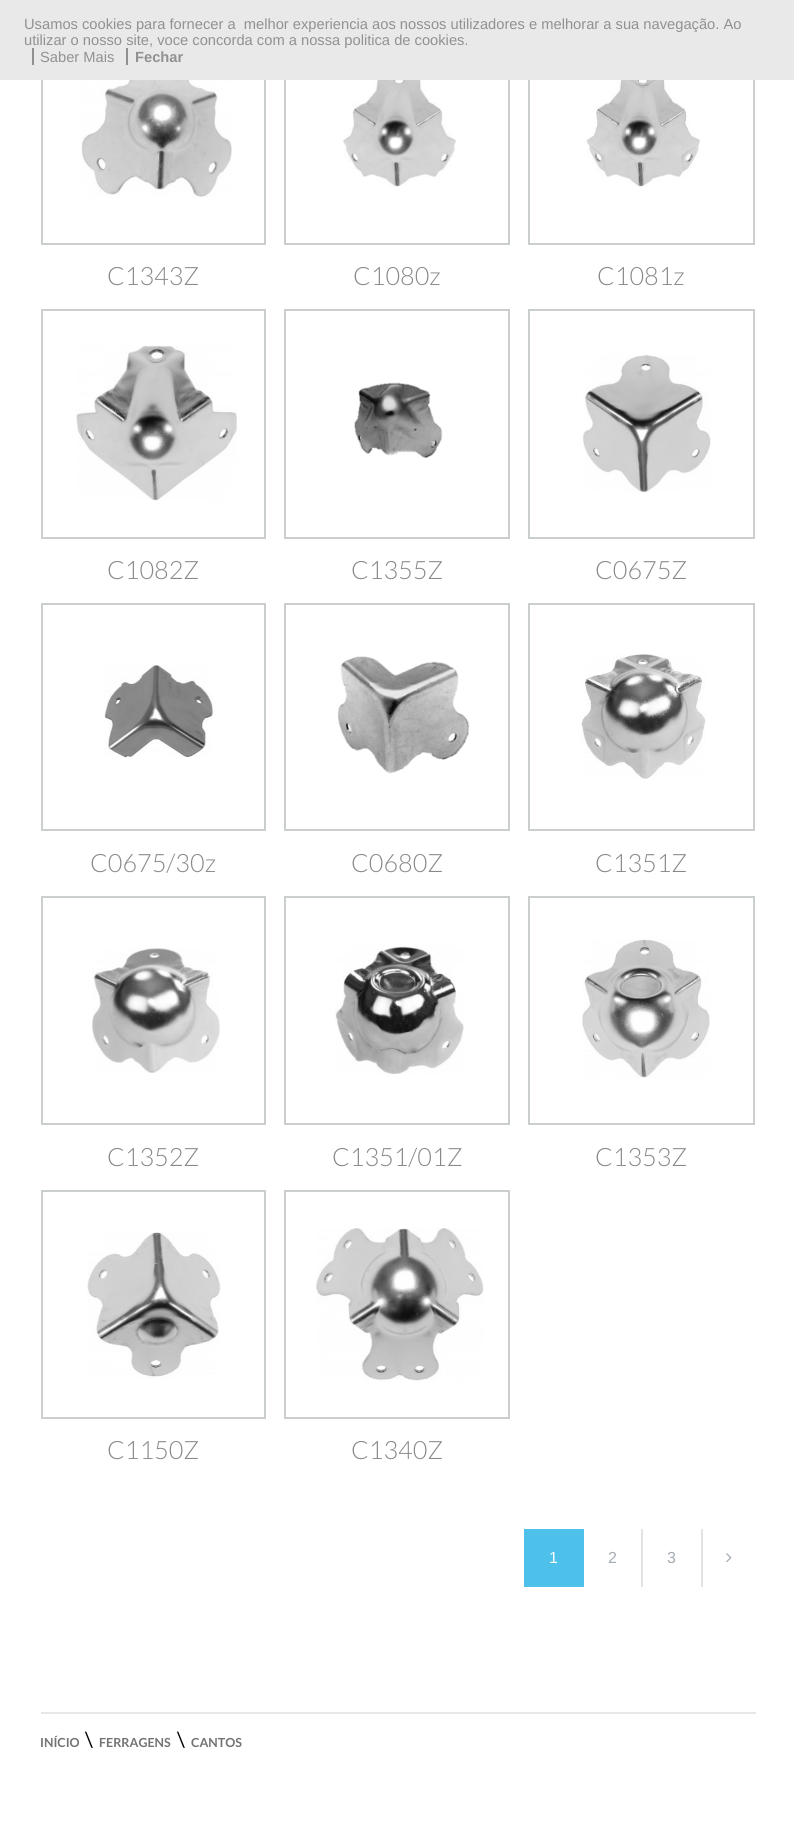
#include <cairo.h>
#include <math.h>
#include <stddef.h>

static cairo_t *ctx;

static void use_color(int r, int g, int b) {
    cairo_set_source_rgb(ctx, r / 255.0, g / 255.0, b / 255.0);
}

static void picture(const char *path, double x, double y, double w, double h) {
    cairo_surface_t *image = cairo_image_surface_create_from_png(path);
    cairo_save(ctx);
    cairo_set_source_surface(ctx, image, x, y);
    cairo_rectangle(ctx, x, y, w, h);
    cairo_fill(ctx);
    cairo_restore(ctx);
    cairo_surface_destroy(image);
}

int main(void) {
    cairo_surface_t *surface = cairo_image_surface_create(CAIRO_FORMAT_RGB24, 794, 1844);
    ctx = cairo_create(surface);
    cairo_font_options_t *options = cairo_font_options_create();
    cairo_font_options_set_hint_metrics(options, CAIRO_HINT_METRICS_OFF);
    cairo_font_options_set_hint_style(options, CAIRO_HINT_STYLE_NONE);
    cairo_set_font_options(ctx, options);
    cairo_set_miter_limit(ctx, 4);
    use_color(255, 255, 255);
    cairo_paint(ctx);
    cairo_rectangle(ctx, 42, 16, 223, 228);
    use_color(203, 206, 207);
    cairo_stroke(ctx);
    cairo_rectangle(ctx, 285, 16, 224, 228);
    cairo_stroke(ctx);
    cairo_rectangle(ctx, 529, 16, 225, 228);
    cairo_stroke(ctx);
    use_color(233, 233, 233);
    cairo_rectangle(ctx, 0, 0, 794, 80);
    cairo_fill(ctx);
    cairo_select_font_face(ctx, "Liberation Sans", CAIRO_FONT_SLANT_NORMAL, CAIRO_FONT_WEIGHT_NORMAL);
    cairo_set_font_size(ctx, 14.7);
    use_color(145, 145, 145);
    cairo_move_to(ctx, 24, 29);
    cairo_show_text(ctx, "Usamos cookies para fornecer a  melhor experiencia aos nossos utilizadores e melhorar a sua navegação. Ao");
    cairo_move_to(ctx, 24, 45);
    cairo_show_text(ctx, "utilizar o nosso site, voce concorda com a nossa politica de cookies.");
    cairo_move_to(ctx, 40, 62);
    cairo_show_text(ctx, "Saber Mais");
    cairo_rectangle(ctx, 32, 48, 2, 17);
    cairo_fill(ctx);
    cairo_select_font_face(ctx, "Liberation Sans", CAIRO_FONT_SLANT_NORMAL, CAIRO_FONT_WEIGHT_BOLD);
    cairo_move_to(ctx, 135, 62);
    cairo_show_text(ctx, "Fechar");
    cairo_rectangle(ctx, 126, 48, 2, 17);
    cairo_fill(ctx);
    picture("img1.png", 81, 80, 151, 117);
    cairo_select_font_face(ctx, "Lato Light", CAIRO_FONT_SLANT_NORMAL, CAIRO_FONT_WEIGHT_NORMAL);
    cairo_set_font_size(ctx, 25.25);
    use_color(137, 137, 137);
    cairo_move_to(ctx, 107, 285);
    cairo_show_text(ctx, "C1343Z");
    picture("img2.png", 343, 80, 113, 107);
    cairo_move_to(ctx, 353, 285);
    cairo_show_text(ctx, "C1080z");
    picture("img3.png", 586, 80, 114, 107);
    cairo_move_to(ctx, 597, 285);
    cairo_show_text(ctx, "C1081z");
    cairo_rectangle(ctx, 42, 310, 223, 228);
    use_color(203, 206, 207);
    cairo_stroke(ctx);
    picture("img4.png", 76, 346, 161, 155);
    use_color(137, 137, 137);
    cairo_move_to(ctx, 107, 579);
    cairo_show_text(ctx, "C1082Z");
    cairo_rectangle(ctx, 285, 310, 224, 228);
    use_color(203, 206, 207);
    cairo_stroke(ctx);
    picture("img5.png", 354, 382, 89, 76);
    use_color(137, 137, 137);
    cairo_move_to(ctx, 351, 579);
    cairo_show_text(ctx, "C1355Z");
    cairo_rectangle(ctx, 529, 310, 225, 228);
    use_color(203, 206, 207);
    cairo_stroke(ctx);
    picture("img6.png", 583, 355, 128, 138);
    use_color(137, 137, 137);
    cairo_move_to(ctx, 595, 579);
    cairo_show_text(ctx, "C0675Z");
    cairo_rectangle(ctx, 42, 604, 223, 226);
    use_color(203, 206, 207);
    cairo_stroke(ctx);
    picture("img7.png", 104, 665, 109, 93);
    use_color(137, 137, 137);
    cairo_move_to(ctx, 90, 872);
    cairo_show_text(ctx, "C0675/30z");
    cairo_rectangle(ctx, 285, 604, 224, 226);
    use_color(203, 206, 207);
    cairo_stroke(ctx);
    picture("img8.png", 337, 656, 133, 118);
    use_color(137, 137, 137);
    cairo_move_to(ctx, 351, 872);
    cairo_show_text(ctx, "C0680Z");
    cairo_rectangle(ctx, 529, 604, 225, 226);
    use_color(203, 206, 207);
    cairo_stroke(ctx);
    picture("img9.png", 581, 654, 125, 125);
    use_color(137, 137, 137);
    cairo_move_to(ctx, 595, 872);
    cairo_show_text(ctx, "C1351Z");
    cairo_rectangle(ctx, 42, 897, 223, 227);
    use_color(203, 206, 207);
    cairo_stroke(ctx);
    picture("img10.png", 92, 948, 128, 125);
    use_color(137, 137, 137);
    cairo_move_to(ctx, 107, 1166);
    cairo_show_text(ctx, "C1352Z");
    cairo_rectangle(ctx, 285, 897, 224, 227);
    use_color(203, 206, 207);
    cairo_stroke(ctx);
    picture("img11.png", 335, 946, 129, 128);
    use_color(137, 137, 137);
    cairo_move_to(ctx, 332, 1166);
    cairo_show_text(ctx, "C1351/01Z");
    cairo_rectangle(ctx, 529, 897, 225, 227);
    use_color(203, 206, 207);
    cairo_stroke(ctx);
    picture("img12.png", 582, 939, 128, 139);
    use_color(137, 137, 137);
    cairo_move_to(ctx, 595, 1166);
    cairo_show_text(ctx, "C1353Z");
    cairo_rectangle(ctx, 42, 1191, 223, 227);
    use_color(203, 206, 207);
    cairo_stroke(ctx);
    picture("img13.png", 87, 1232, 134, 147);
    use_color(137, 137, 137);
    cairo_move_to(ctx, 107, 1459);
    cairo_show_text(ctx, "C1150Z");
    cairo_rectangle(ctx, 285, 1191, 224, 227);
    use_color(203, 206, 207);
    cairo_stroke(ctx);
    picture("img14.png", 316, 1228, 168, 153);
    use_color(137, 137, 137);
    cairo_move_to(ctx, 351, 1459);
    cairo_show_text(ctx, "C1340Z");
    use_color(78, 193, 234);
    cairo_rectangle(ctx, 524, 1529, 60, 58);
    cairo_fill(ctx);
    cairo_select_font_face(ctx, "Liberation Sans", CAIRO_FONT_SLANT_NORMAL, CAIRO_FONT_WEIGHT_NORMAL);
    cairo_set_font_size(ctx, 16);
    use_color(255, 255, 255);
    cairo_move_to(ctx, 549, 1563);
    cairo_show_text(ctx, "1");
    use_color(165, 172, 179);
    cairo_move_to(ctx, 608, 1563);
    cairo_show_text(ctx, "2");
    use_color(228, 228, 228);
    cairo_rectangle(ctx, 641, 1529, 2, 58);
    cairo_fill(ctx);
    use_color(165, 172, 179);
    cairo_move_to(ctx, 667, 1563);
    cairo_show_text(ctx, "3");
    use_color(228, 228, 228);
    cairo_rectangle(ctx, 701, 1529, 2, 58);
    cairo_fill(ctx);
    picture("img15.png", 726, 1553, 6, 10);
    use_color(231, 231, 231);
    cairo_rectangle(ctx, 41, 1712, 715, 2);
    cairo_fill(ctx);
    cairo_select_font_face(ctx, "Lato", CAIRO_FONT_SLANT_NORMAL, CAIRO_FONT_WEIGHT_BOLD);
    cairo_set_font_size(ctx, 12.5);
    use_color(115, 115, 115);
    cairo_move_to(ctx, 40, 1747);
    cairo_show_text(ctx, "INÍCIO");
    cairo_select_font_face(ctx, "Lato", CAIRO_FONT_SLANT_NORMAL, CAIRO_FONT_WEIGHT_NORMAL);
    cairo_set_font_size(ctx, 21);
    use_color(0, 0, 0);
    cairo_move_to(ctx, 85, 1747);
    cairo_show_text(ctx, "\\");
    cairo_select_font_face(ctx, "Lato", CAIRO_FONT_SLANT_NORMAL, CAIRO_FONT_WEIGHT_BOLD);
    cairo_set_font_size(ctx, 12.5);
    use_color(115, 115, 115);
    cairo_move_to(ctx, 99, 1747);
    cairo_show_text(ctx, "FERRAGENS");
    cairo_select_font_face(ctx, "Lato", CAIRO_FONT_SLANT_NORMAL, CAIRO_FONT_WEIGHT_NORMAL);
    cairo_set_font_size(ctx, 21);
    use_color(0, 0, 0);
    cairo_move_to(ctx, 177, 1747);
    cairo_show_text(ctx, "\\");
    cairo_select_font_face(ctx, "Lato", CAIRO_FONT_SLANT_NORMAL, CAIRO_FONT_WEIGHT_BOLD);
    cairo_set_font_size(ctx, 12.5);
    use_color(115, 115, 115);
    cairo_move_to(ctx, 191, 1747);
    cairo_show_text(ctx, "CANTOS");
    cairo_surface_write_to_png(surface, "result.png");
    cairo_font_options_destroy(options);
    cairo_destroy(ctx);
    cairo_surface_destroy(surface);
    return 0;
}
